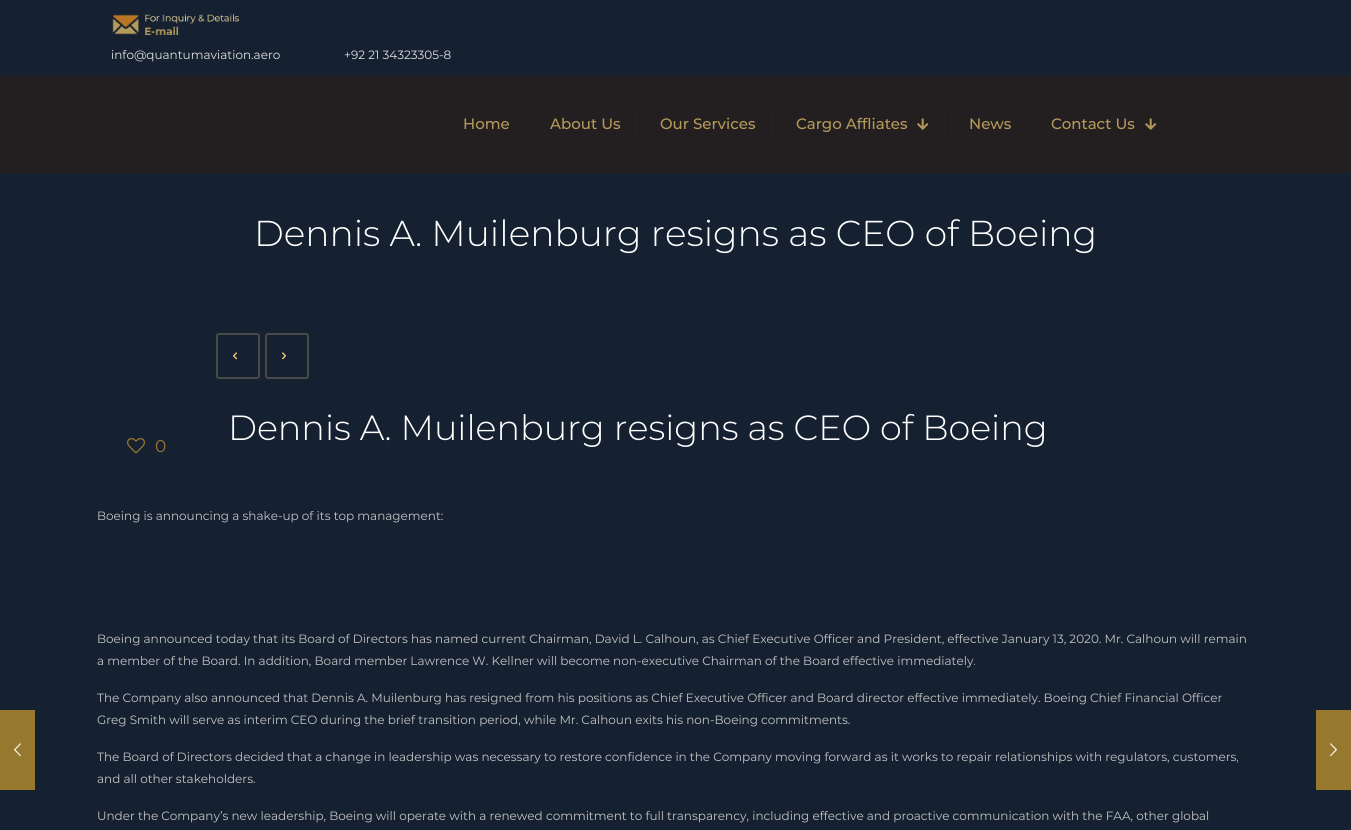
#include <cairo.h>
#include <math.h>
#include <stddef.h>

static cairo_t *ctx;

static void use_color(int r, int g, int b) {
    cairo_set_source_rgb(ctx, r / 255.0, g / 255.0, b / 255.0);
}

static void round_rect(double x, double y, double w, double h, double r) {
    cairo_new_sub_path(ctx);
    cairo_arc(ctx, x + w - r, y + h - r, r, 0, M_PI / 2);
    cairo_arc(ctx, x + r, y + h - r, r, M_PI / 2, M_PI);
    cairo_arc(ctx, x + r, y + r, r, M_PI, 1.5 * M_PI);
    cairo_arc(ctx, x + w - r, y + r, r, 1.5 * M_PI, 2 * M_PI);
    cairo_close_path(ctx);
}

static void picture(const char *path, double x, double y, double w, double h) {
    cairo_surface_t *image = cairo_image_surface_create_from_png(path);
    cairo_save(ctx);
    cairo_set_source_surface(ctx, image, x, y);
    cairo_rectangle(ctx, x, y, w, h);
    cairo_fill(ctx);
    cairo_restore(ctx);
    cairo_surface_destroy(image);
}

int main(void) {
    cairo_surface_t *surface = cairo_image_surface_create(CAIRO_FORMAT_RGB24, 1351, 830);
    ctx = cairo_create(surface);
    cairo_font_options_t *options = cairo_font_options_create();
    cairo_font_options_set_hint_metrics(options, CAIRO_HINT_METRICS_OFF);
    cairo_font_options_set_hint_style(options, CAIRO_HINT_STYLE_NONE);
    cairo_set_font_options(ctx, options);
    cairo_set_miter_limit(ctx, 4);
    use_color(21, 32, 48);
    cairo_paint(ctx);
    use_color(151, 120, 47);
    cairo_rectangle(ctx, 0, 710, 35, 80);
    cairo_fill(ctx);
    picture("img1.png", 14, 743, 7, 14);
    picture("img2.png", 112, 14, 127, 21);
    cairo_select_font_face(ctx, "Montserrat", CAIRO_FONT_SLANT_NORMAL, CAIRO_FONT_WEIGHT_NORMAL);
    cairo_set_font_size(ctx, 12);
    use_color(226, 226, 226);
    cairo_move_to(ctx, 111, 59);
    cairo_show_text(ctx, "info@quantumaviation.aero");
    cairo_move_to(ctx, 344, 59);
    cairo_show_text(ctx, "+92 21 34323305-8");
    use_color(35, 31, 32);
    cairo_rectangle(ctx, 0, 76, 1351, 97);
    cairo_fill(ctx);
    cairo_select_font_face(ctx, "Montserrat Medium", CAIRO_FONT_SLANT_NORMAL, CAIRO_FONT_WEIGHT_NORMAL);
    cairo_set_font_size(ctx, 15);
    use_color(181, 154, 90);
    cairo_move_to(ctx, 463, 129);
    cairo_show_text(ctx, "Home");
    use_color(30, 27, 33);
    cairo_rectangle(ctx, 529, 105, 1, 38);
    cairo_fill(ctx);
    use_color(181, 154, 90);
    cairo_move_to(ctx, 550, 129);
    cairo_show_text(ctx, "About Us");
    use_color(30, 27, 33);
    cairo_rectangle(ctx, 639, 105, 1, 38);
    cairo_fill(ctx);
    use_color(181, 154, 90);
    cairo_move_to(ctx, 660, 129);
    cairo_show_text(ctx, "Our Services");
    use_color(30, 27, 33);
    cairo_rectangle(ctx, 775, 105, 1, 38);
    cairo_fill(ctx);
    use_color(181, 154, 90);
    cairo_move_to(ctx, 796, 129);
    cairo_show_text(ctx, "Cargo Affliates");
    picture("img3.png", 917, 118, 12, 12);
    use_color(30, 27, 33);
    cairo_rectangle(ctx, 948, 105, 1, 38);
    cairo_fill(ctx);
    use_color(181, 154, 90);
    cairo_move_to(ctx, 969, 129);
    cairo_show_text(ctx, "News");
    use_color(30, 27, 33);
    cairo_rectangle(ctx, 1030, 105, 1, 38);
    cairo_fill(ctx);
    use_color(181, 154, 90);
    cairo_move_to(ctx, 1051, 129);
    cairo_show_text(ctx, "Contact Us");
    picture("img3.png", 1145, 118, 12, 12);
    cairo_select_font_face(ctx, "Montserrat Light", CAIRO_FONT_SLANT_NORMAL, CAIRO_FONT_WEIGHT_NORMAL);
    cairo_set_font_size(ctx, 36);
    use_color(255, 255, 255);
    cairo_move_to(ctx, 254, 246);
    cairo_show_text(ctx, "Dennis A. Muilenburg resigns as CEO of Boeing");
    round_rect(217, 334, 42, 44, 2);
    use_color(73, 73, 73);
    cairo_stroke(ctx);
    picture("img4.png", 233, 352, 4, 8);
    round_rect(266, 334, 42, 44, 2);
    cairo_stroke(ctx);
    picture("img5.png", 282, 352, 4, 8);
    picture("img6.png", 127, 438, 18, 16);
    cairo_select_font_face(ctx, "Montserrat", CAIRO_FONT_SLANT_NORMAL, CAIRO_FONT_WEIGHT_NORMAL);
    cairo_set_font_size(ctx, 17);
    use_color(151, 120, 47);
    cairo_move_to(ctx, 155, 452);
    cairo_show_text(ctx, "0");
    use_color(19, 29, 44);
    cairo_rectangle(ctx, 197, 410, 1, 35);
    cairo_fill(ctx);
    cairo_select_font_face(ctx, "Montserrat Light", CAIRO_FONT_SLANT_NORMAL, CAIRO_FONT_WEIGHT_NORMAL);
    cairo_set_font_size(ctx, 35);
    use_color(255, 255, 255);
    cairo_move_to(ctx, 228, 440);
    cairo_show_text(ctx, "Dennis A. Muilenburg resigns as CEO of Boeing");
    cairo_select_font_face(ctx, "Montserrat", CAIRO_FONT_SLANT_NORMAL, CAIRO_FONT_WEIGHT_NORMAL);
    cairo_set_font_size(ctx, 12);
    use_color(196, 196, 196);
    cairo_move_to(ctx, 97, 520);
    cairo_show_text(ctx, "Boeing is announcing a shake-up of its top management:");
    cairo_move_to(ctx, 97, 643);
    cairo_show_text(ctx, "Boeing announced today that its Board of Directors has named current Chairman, David L. Calhoun, as Chief Executive Officer and President, effective January 13, 2020. Mr. Calhoun will remain");
    cairo_move_to(ctx, 97, 665);
    cairo_show_text(ctx, "a member of the Board. In addition, Board member Lawrence W. Kellner will become non-executive Chairman of the Board effective immediately.");
    cairo_move_to(ctx, 97, 702);
    cairo_show_text(ctx, "The Company also announced that Dennis A. Muilenburg has resigned from his positions as Chief Executive Officer and Board director effective immediately. Boeing Chief Financial Officer");
    cairo_move_to(ctx, 97, 724);
    cairo_show_text(ctx, "Greg Smith will serve as interim CEO during the brief transition period, while Mr. Calhoun exits his non-Boeing commitments.");
    cairo_move_to(ctx, 97, 761);
    cairo_show_text(ctx, "The Board of Directors decided that a change in leadership was necessary to restore confidence in the Company moving forward as it works to repair relationships with regulators, customers,");
    cairo_move_to(ctx, 97, 783);
    cairo_show_text(ctx, "and all other stakeholders.");
    cairo_move_to(ctx, 97, 820);
    cairo_show_text(ctx, "Under the Company’s new leadership, Boeing will operate with a renewed commitment to full transparency, including effective and proactive communication with the FAA, other global");
    use_color(151, 120, 47);
    cairo_rectangle(ctx, 1316, 710, 35, 80);
    cairo_fill(ctx);
    picture("img7.png", 1330, 743, 7, 14);
    cairo_surface_write_to_png(surface, "result.png");
    cairo_font_options_destroy(options);
    cairo_destroy(ctx);
    cairo_surface_destroy(surface);
    return 0;
}
